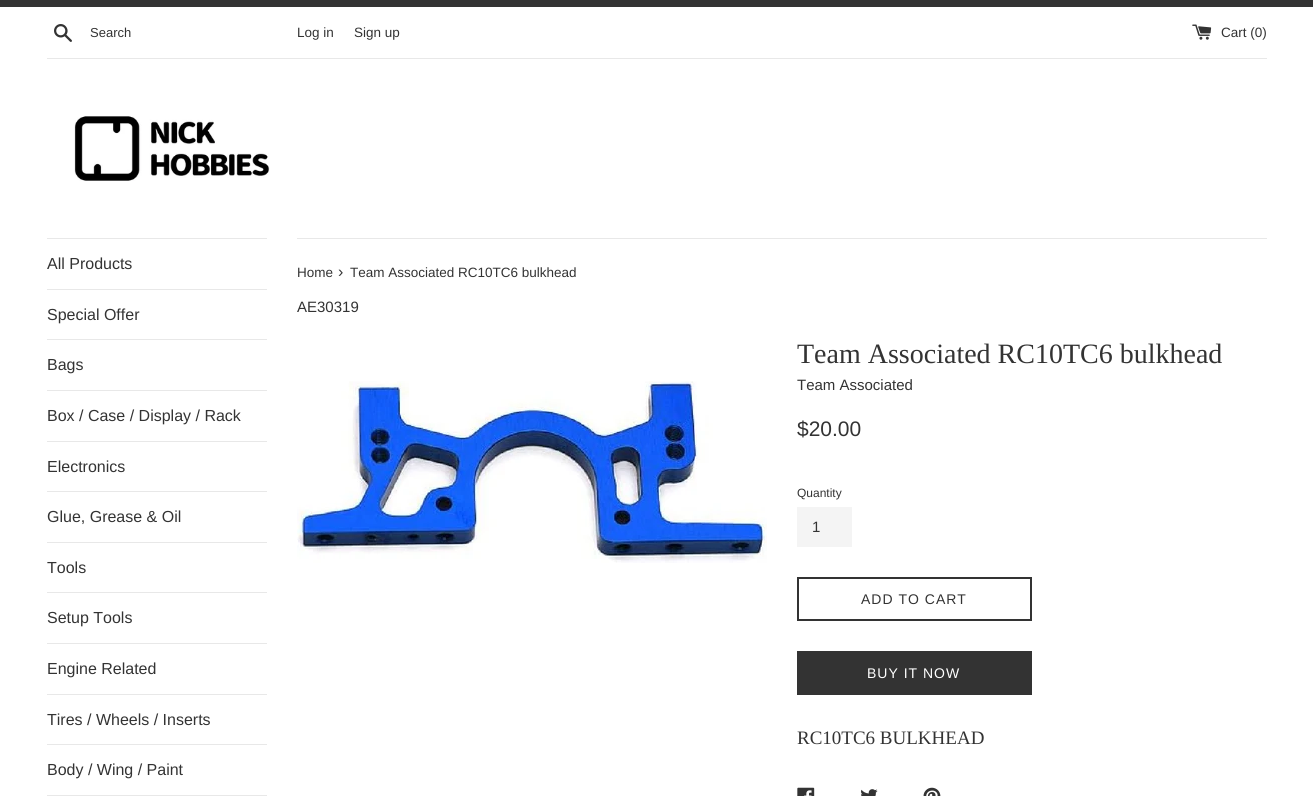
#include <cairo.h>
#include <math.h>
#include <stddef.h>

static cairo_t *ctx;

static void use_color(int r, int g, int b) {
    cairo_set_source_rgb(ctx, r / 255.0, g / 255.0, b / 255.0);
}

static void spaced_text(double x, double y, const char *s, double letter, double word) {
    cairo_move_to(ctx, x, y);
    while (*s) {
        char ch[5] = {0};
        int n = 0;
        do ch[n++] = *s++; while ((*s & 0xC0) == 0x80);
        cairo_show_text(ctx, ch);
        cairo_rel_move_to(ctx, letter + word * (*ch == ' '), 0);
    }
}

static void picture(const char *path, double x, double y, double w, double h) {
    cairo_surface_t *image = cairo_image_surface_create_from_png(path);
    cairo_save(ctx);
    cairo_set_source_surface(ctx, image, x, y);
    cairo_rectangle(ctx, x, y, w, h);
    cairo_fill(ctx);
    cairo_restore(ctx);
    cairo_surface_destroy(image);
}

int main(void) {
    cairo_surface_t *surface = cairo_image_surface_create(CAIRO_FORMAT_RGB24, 1313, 796);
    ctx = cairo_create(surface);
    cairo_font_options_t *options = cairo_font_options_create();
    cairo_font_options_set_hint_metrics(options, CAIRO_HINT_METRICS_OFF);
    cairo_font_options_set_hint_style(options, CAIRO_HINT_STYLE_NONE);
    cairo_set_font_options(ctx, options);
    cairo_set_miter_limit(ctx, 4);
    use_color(255, 255, 255);
    cairo_paint(ctx);
    use_color(51, 51, 51);
    cairo_rectangle(ctx, 0, 0, 1313, 7);
    cairo_fill(ctx);
    picture("img1.png", 54, 24, 18, 18);
    cairo_select_font_face(ctx, "Liberation Sans", CAIRO_FONT_SLANT_NORMAL, CAIRO_FONT_WEIGHT_NORMAL);
    cairo_set_font_size(ctx, 13);
    cairo_move_to(ctx, 90, 37);
    cairo_show_text(ctx, "Search");
    cairo_set_font_size(ctx, 13.5);
    cairo_move_to(ctx, 297, 37);
    cairo_show_text(ctx, "Log in");
    cairo_move_to(ctx, 354, 37);
    cairo_show_text(ctx, "Sign up");
    picture("img2.png", 1192, 24, 20, 16);
    cairo_move_to(ctx, 1221, 37);
    cairo_show_text(ctx, "Cart (0)");
    use_color(232, 232, 232);
    cairo_rectangle(ctx, 47, 58, 1220, 1);
    cairo_fill(ctx);
    picture("img3.png", 74, 116, 196, 65);
    cairo_rectangle(ctx, 47, 238, 220, 1);
    cairo_fill(ctx);
    cairo_rectangle(ctx, 47, 289, 220, 1);
    cairo_fill(ctx);
    cairo_set_font_size(ctx, 16);
    use_color(51, 51, 51);
    cairo_move_to(ctx, 47, 269);
    cairo_show_text(ctx, "All Products");
    use_color(232, 232, 232);
    cairo_rectangle(ctx, 47, 339, 220, 1);
    cairo_fill(ctx);
    use_color(51, 51, 51);
    cairo_move_to(ctx, 47, 320);
    cairo_show_text(ctx, "Special Offer");
    use_color(232, 232, 232);
    cairo_rectangle(ctx, 47, 390, 220, 1);
    cairo_fill(ctx);
    use_color(51, 51, 51);
    cairo_move_to(ctx, 47, 370);
    cairo_show_text(ctx, "Bags");
    use_color(232, 232, 232);
    cairo_rectangle(ctx, 47, 441, 220, 1);
    cairo_fill(ctx);
    use_color(51, 51, 51);
    cairo_move_to(ctx, 47, 421);
    cairo_show_text(ctx, "Box / Case / Display / Rack");
    use_color(232, 232, 232);
    cairo_rectangle(ctx, 47, 491, 220, 1);
    cairo_fill(ctx);
    use_color(51, 51, 51);
    cairo_move_to(ctx, 47, 472);
    cairo_show_text(ctx, "Electronics");
    use_color(232, 232, 232);
    cairo_rectangle(ctx, 47, 542, 220, 1);
    cairo_fill(ctx);
    use_color(51, 51, 51);
    cairo_move_to(ctx, 47, 522);
    cairo_show_text(ctx, "Glue, Grease & Oil");
    use_color(232, 232, 232);
    cairo_rectangle(ctx, 47, 592, 220, 1);
    cairo_fill(ctx);
    use_color(51, 51, 51);
    cairo_move_to(ctx, 47, 573);
    cairo_show_text(ctx, "Tools");
    use_color(232, 232, 232);
    cairo_rectangle(ctx, 47, 643, 220, 1);
    cairo_fill(ctx);
    use_color(51, 51, 51);
    cairo_move_to(ctx, 47, 623);
    cairo_show_text(ctx, "Setup Tools");
    use_color(232, 232, 232);
    cairo_rectangle(ctx, 47, 694, 220, 1);
    cairo_fill(ctx);
    use_color(51, 51, 51);
    cairo_move_to(ctx, 47, 674);
    cairo_show_text(ctx, "Engine Related");
    use_color(232, 232, 232);
    cairo_rectangle(ctx, 47, 744, 220, 1);
    cairo_fill(ctx);
    use_color(51, 51, 51);
    cairo_move_to(ctx, 47, 725);
    cairo_show_text(ctx, "Tires / Wheels / Inserts");
    use_color(232, 232, 232);
    cairo_rectangle(ctx, 47, 795, 220, 1);
    cairo_fill(ctx);
    use_color(51, 51, 51);
    cairo_move_to(ctx, 47, 775);
    cairo_show_text(ctx, "Body / Wing / Paint");
    use_color(232, 232, 232);
    cairo_rectangle(ctx, 297, 238, 970, 1);
    cairo_fill(ctx);
    cairo_set_font_size(ctx, 13.5);
    use_color(51, 51, 51);
    cairo_move_to(ctx, 297, 277);
    cairo_show_text(ctx, "Home");
    cairo_set_font_size(ctx, 16);
    cairo_move_to(ctx, 338, 277);
    cairo_show_text(ctx, "›");
    cairo_set_font_size(ctx, 13.5);
    cairo_move_to(ctx, 350, 277);
    cairo_show_text(ctx, "Team Associated RC10TC6 bulkhead");
    cairo_set_font_size(ctx, 15);
    cairo_move_to(ctx, 297, 312);
    cairo_show_text(ctx, "AE30319");
    picture("img4.png", 297, 381, 470, 182);
    cairo_select_font_face(ctx, "Liberation Serif", CAIRO_FONT_SLANT_NORMAL, CAIRO_FONT_WEIGHT_NORMAL);
    cairo_set_font_size(ctx, 28);
    cairo_move_to(ctx, 797, 363);
    cairo_show_text(ctx, "Team Associated RC10TC6 bulkhead");
    cairo_select_font_face(ctx, "Liberation Sans", CAIRO_FONT_SLANT_NORMAL, CAIRO_FONT_WEIGHT_NORMAL);
    cairo_set_font_size(ctx, 15);
    cairo_move_to(ctx, 797, 390);
    cairo_show_text(ctx, "Team Associated");
    cairo_set_font_size(ctx, 21);
    cairo_move_to(ctx, 797, 436);
    cairo_show_text(ctx, "$20.00");
    cairo_set_font_size(ctx, 12);
    cairo_move_to(ctx, 797, 497);
    cairo_show_text(ctx, "Quantity");
    use_color(244, 244, 244);
    cairo_rectangle(ctx, 797, 507, 55, 40);
    cairo_fill(ctx);
    cairo_set_font_size(ctx, 15);
    use_color(51, 51, 51);
    cairo_move_to(ctx, 812, 532);
    cairo_show_text(ctx, "1");
    cairo_rectangle(ctx, 798, 578, 233, 42);
    cairo_stroke(ctx);
    cairo_set_font_size(ctx, 14);
    spaced_text(861, 604, "ADD TO CART", 1, 0);
    cairo_rectangle(ctx, 797, 651, 235, 44);
    cairo_fill(ctx);
    use_color(255, 255, 255);
    spaced_text(867, 678, "BUY IT NOW", 1, 0);
    cairo_select_font_face(ctx, "Liberation Serif", CAIRO_FONT_SLANT_NORMAL, CAIRO_FONT_WEIGHT_NORMAL);
    cairo_set_font_size(ctx, 19);
    use_color(51, 51, 51);
    cairo_move_to(ctx, 797, 744);
    cairo_show_text(ctx, "RC10TC6 BULKHEAD");
    picture("img5.png", 797, 787, 18, 9);
    picture("img6.png", 861, 789, 17, 7);
    picture("img7.png", 923, 787, 18, 9);
    cairo_surface_write_to_png(surface, "result.png");
    cairo_font_options_destroy(options);
    cairo_destroy(ctx);
    cairo_surface_destroy(surface);
    return 0;
}
